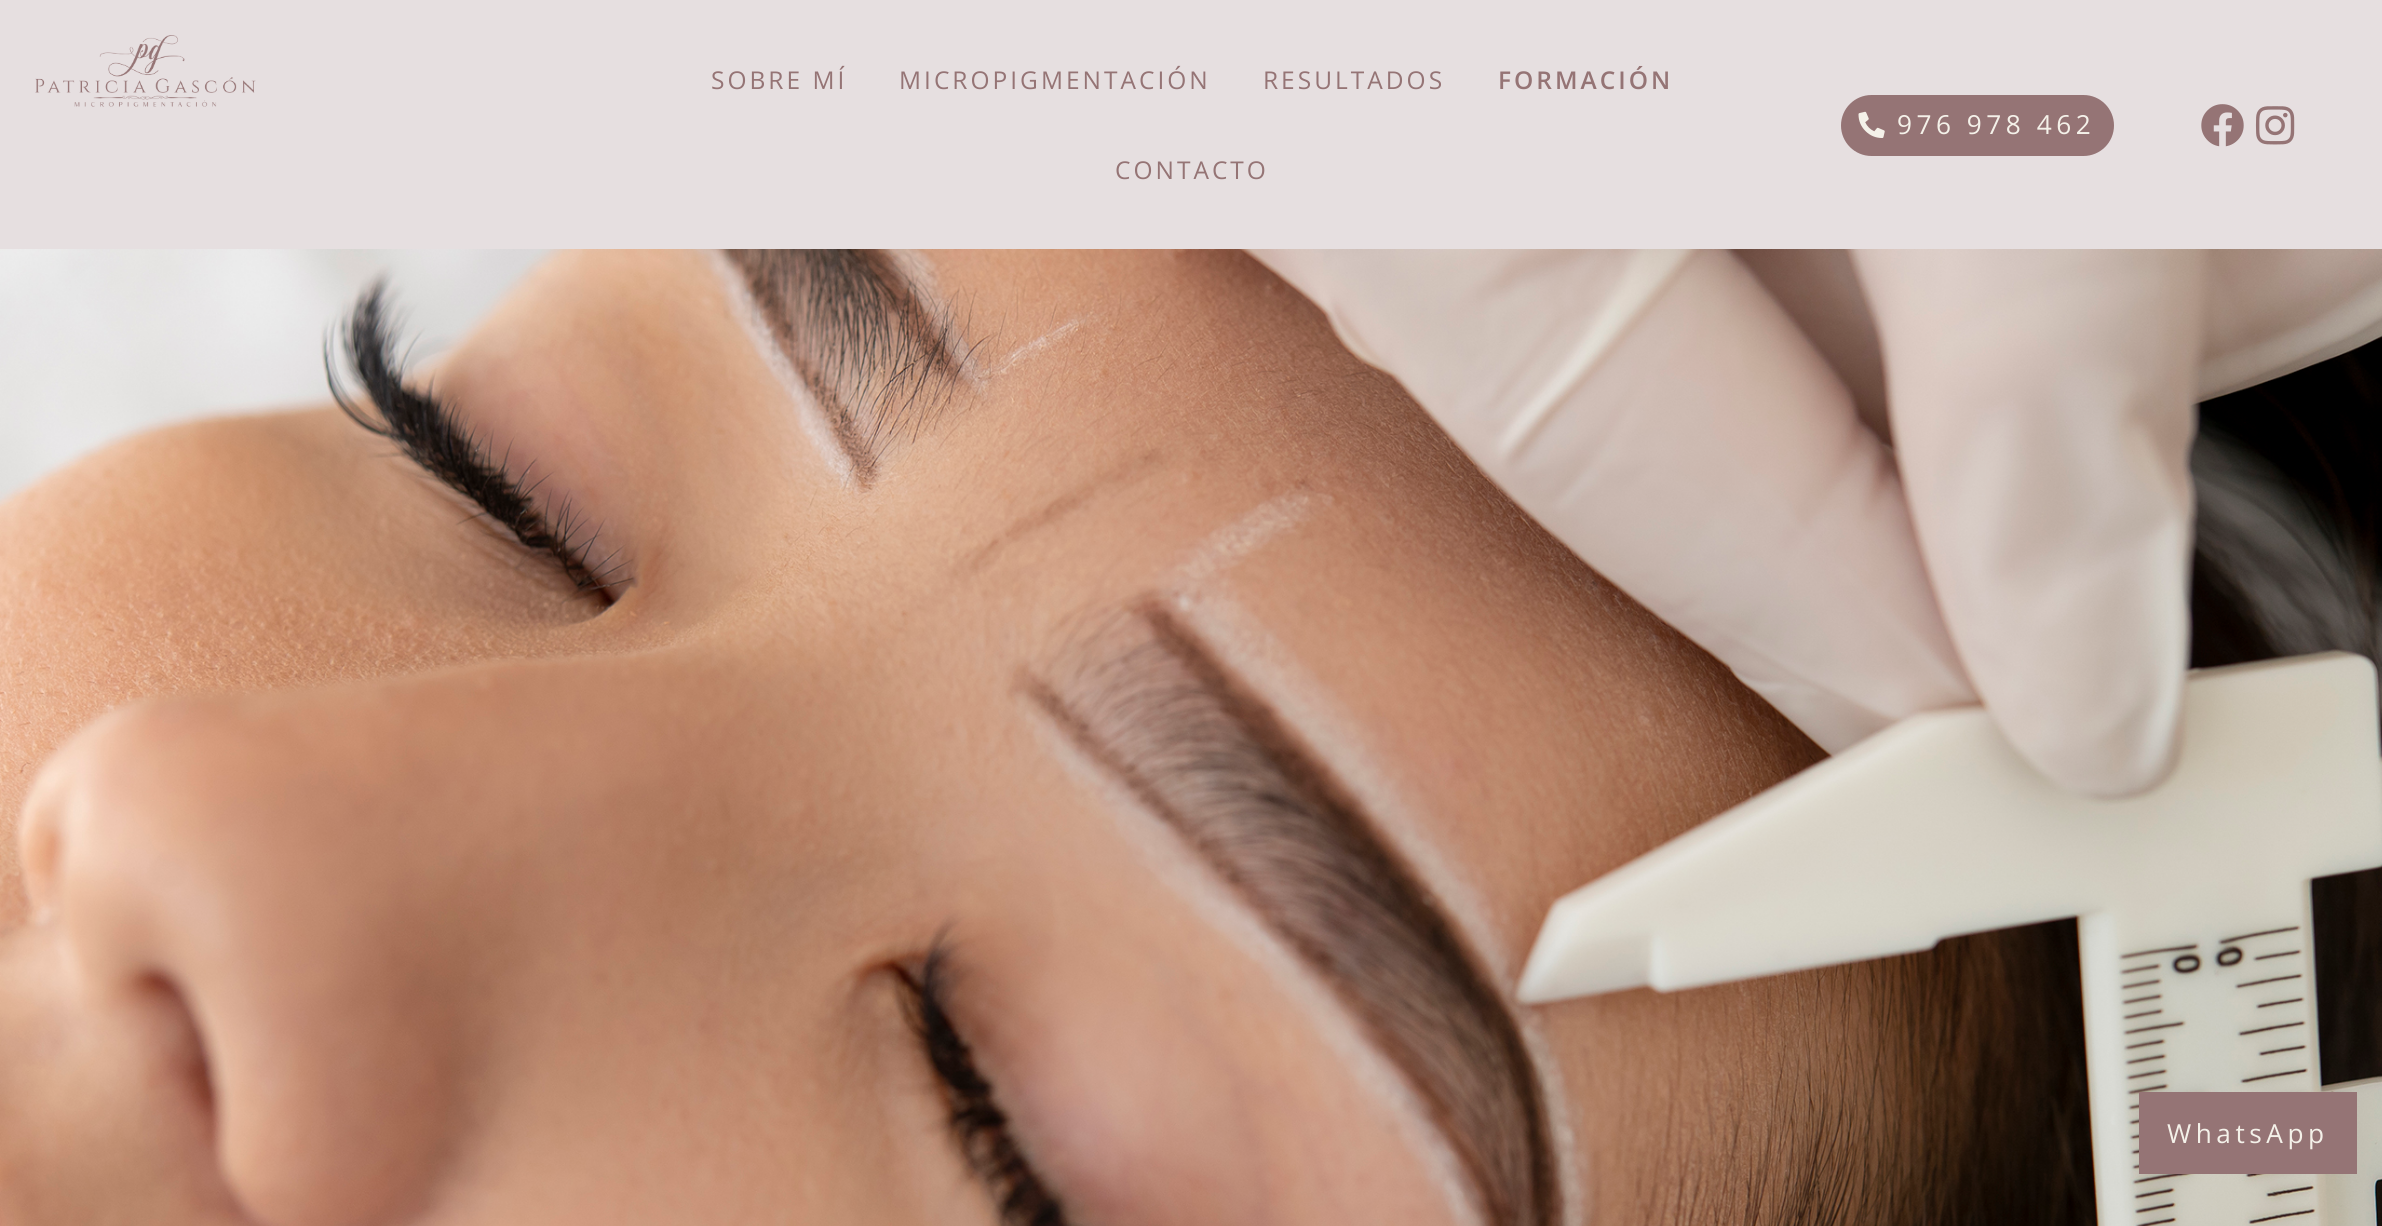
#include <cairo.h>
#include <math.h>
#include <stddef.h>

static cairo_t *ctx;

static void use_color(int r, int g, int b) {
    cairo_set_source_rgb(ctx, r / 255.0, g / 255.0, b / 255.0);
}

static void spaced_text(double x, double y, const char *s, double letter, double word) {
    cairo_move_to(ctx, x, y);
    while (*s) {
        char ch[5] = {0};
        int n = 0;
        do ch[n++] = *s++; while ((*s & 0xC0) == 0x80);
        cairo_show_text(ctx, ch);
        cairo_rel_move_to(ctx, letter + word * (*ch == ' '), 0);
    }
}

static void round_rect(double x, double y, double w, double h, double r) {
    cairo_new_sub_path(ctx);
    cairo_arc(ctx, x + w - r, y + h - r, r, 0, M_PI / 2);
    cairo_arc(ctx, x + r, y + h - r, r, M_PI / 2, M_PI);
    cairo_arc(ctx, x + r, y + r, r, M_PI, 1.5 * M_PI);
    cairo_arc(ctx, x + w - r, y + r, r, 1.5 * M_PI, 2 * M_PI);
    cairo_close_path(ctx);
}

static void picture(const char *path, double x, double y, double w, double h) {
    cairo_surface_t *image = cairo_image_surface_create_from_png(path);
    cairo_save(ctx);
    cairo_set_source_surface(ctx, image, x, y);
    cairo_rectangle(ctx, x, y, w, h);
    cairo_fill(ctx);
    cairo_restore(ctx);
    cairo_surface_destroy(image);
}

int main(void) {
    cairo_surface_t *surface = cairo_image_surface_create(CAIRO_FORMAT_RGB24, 2382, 1226);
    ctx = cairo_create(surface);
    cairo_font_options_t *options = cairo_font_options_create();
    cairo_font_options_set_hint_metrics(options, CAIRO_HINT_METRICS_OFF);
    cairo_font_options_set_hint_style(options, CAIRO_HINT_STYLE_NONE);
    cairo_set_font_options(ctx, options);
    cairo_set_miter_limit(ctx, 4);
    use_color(255, 255, 255);
    cairo_paint(ctx);
    use_color(230, 223, 224);
    cairo_rectangle(ctx, 0, 0, 2382, 249);
    cairo_fill(ctx);
    picture("img1.png", 35, 35, 221, 72);
    cairo_select_font_face(ctx, "Open Sans", CAIRO_FONT_SLANT_NORMAL, CAIRO_FONT_WEIGHT_NORMAL);
    cairo_set_font_size(ctx, 24.5);
    use_color(149, 116, 117);
    spaced_text(711, 89, "SOBRE MÍ", 3, 0);
    spaced_text(899, 89, "MICROPIGMENTACIÓN", 3, 0);
    spaced_text(1263, 89, "RESULTADOS", 3, 0);
    cairo_select_font_face(ctx, "Open Sans SemiBold", CAIRO_FONT_SLANT_NORMAL, CAIRO_FONT_WEIGHT_NORMAL);
    spaced_text(1498, 89, "FORMACIÓN", 3, 0);
    cairo_select_font_face(ctx, "Open Sans", CAIRO_FONT_SLANT_NORMAL, CAIRO_FONT_WEIGHT_NORMAL);
    spaced_text(1115, 179, "CONTACTO", 3, 0);
    round_rect(1841, 95, 273, 61, 30.5);
    cairo_fill(ctx);
    picture("img2.png", 1858, 111, 27, 27);
    cairo_set_font_size(ctx, 26.25);
    use_color(244, 241, 233);
    spaced_text(1897, 134, "976 978 462", 4.5, 0);
    picture("img3.png", 2201, 104, 43, 43);
    picture("img4.png", 2255, 106, 40, 39);
    picture("img5.png", 0, 249, 2382, 977);
    use_color(149, 116, 117);
    cairo_rectangle(ctx, 2139, 1092, 218, 82);
    cairo_fill(ctx);
    use_color(244, 241, 233);
    spaced_text(2167, 1143, "WhatsApp", 4.5, 0);
    cairo_surface_write_to_png(surface, "result.png");
    cairo_font_options_destroy(options);
    cairo_destroy(ctx);
    cairo_surface_destroy(surface);
    return 0;
}
